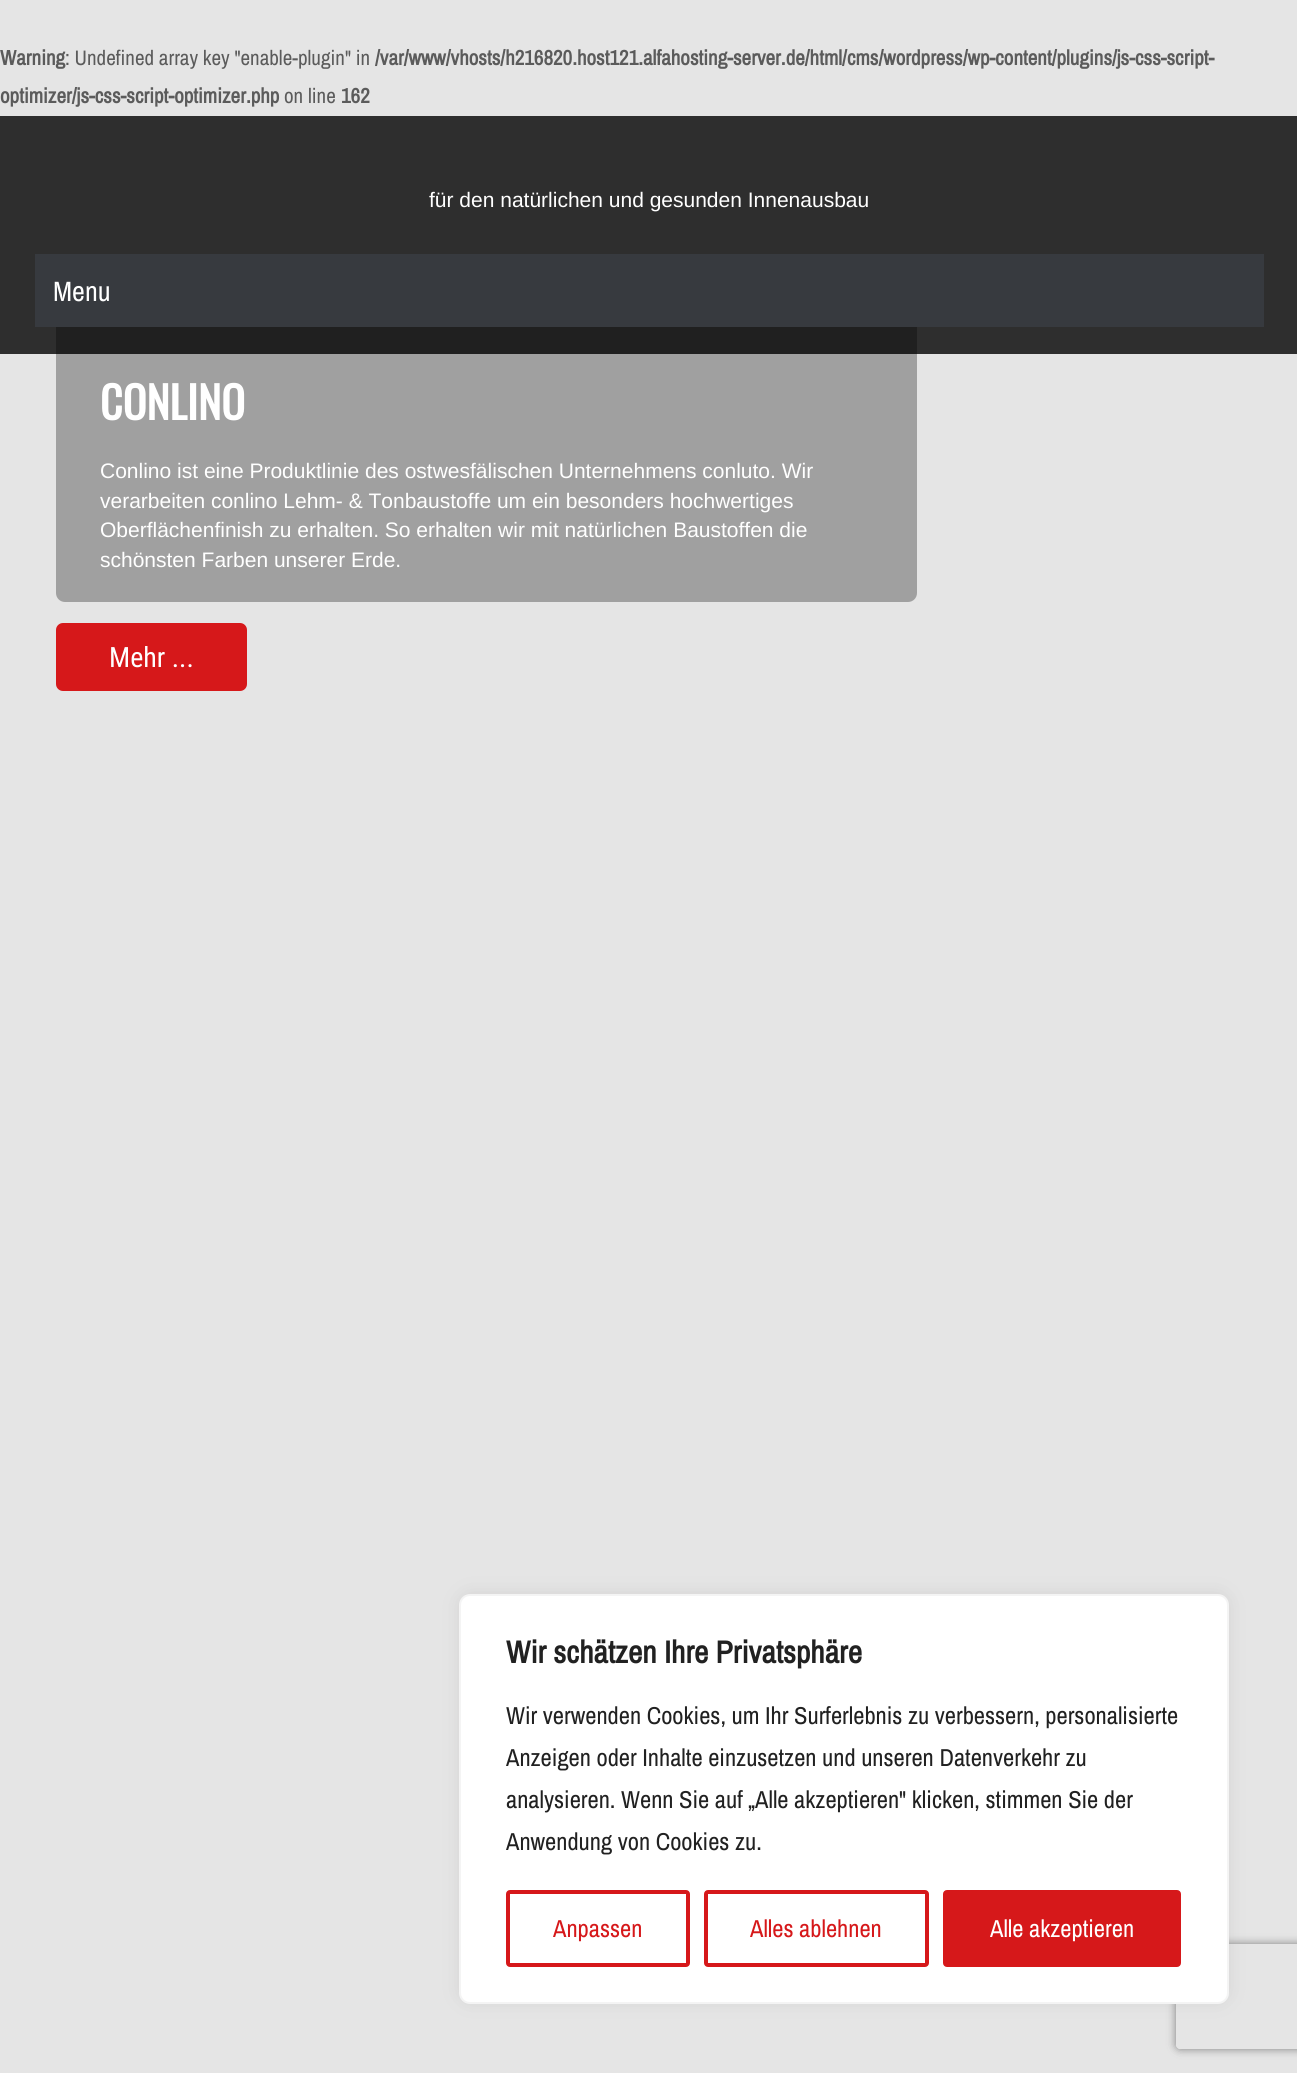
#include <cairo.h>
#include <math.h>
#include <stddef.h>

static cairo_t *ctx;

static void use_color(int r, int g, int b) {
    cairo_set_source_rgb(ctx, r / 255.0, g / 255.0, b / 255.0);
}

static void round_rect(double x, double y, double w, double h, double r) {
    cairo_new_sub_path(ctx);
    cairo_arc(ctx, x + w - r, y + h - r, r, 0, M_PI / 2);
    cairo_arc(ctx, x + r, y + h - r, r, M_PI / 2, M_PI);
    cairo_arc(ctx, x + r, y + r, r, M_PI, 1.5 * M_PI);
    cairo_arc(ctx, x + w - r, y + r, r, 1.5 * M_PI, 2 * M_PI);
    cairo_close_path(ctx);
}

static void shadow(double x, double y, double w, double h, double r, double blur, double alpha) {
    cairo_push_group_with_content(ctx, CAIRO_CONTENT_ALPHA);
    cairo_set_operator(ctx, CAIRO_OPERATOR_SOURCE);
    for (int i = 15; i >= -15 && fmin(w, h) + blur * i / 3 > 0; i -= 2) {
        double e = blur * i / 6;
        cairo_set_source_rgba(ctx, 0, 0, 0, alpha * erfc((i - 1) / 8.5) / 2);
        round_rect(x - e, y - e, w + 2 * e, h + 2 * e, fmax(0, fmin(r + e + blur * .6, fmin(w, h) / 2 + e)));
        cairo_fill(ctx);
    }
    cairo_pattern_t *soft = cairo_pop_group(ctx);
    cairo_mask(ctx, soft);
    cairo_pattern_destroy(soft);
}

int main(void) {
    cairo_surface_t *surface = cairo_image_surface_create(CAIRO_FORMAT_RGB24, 1297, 2073);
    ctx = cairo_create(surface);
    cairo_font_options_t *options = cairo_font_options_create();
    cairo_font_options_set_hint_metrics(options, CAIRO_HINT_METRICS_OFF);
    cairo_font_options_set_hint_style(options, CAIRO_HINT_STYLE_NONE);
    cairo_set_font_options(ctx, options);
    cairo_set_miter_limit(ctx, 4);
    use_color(229, 229, 229);
    cairo_paint(ctx);
    cairo_select_font_face(ctx, "Archivo Narrow", CAIRO_FONT_SLANT_NORMAL, CAIRO_FONT_WEIGHT_BOLD);
    cairo_set_font_size(ctx, 21);
    use_color(91, 91, 91);
    cairo_move_to(ctx, 0, 65);
    cairo_show_text(ctx, "Warning");
    cairo_select_font_face(ctx, "Archivo Narrow", CAIRO_FONT_SLANT_NORMAL, CAIRO_FONT_WEIGHT_NORMAL);
    cairo_move_to(ctx, 65, 65);
    cairo_show_text(ctx, ": Undefined array key \"enable-plugin\" in");
    cairo_select_font_face(ctx, "Archivo Narrow", CAIRO_FONT_SLANT_NORMAL, CAIRO_FONT_WEIGHT_BOLD);
    cairo_move_to(ctx, 375, 65);
    cairo_show_text(ctx, "/var/www/vhosts/h216820.host121.alfahosting-server.de/html/cms/wordpress/wp-content/plugins/js-css-script-");
    cairo_move_to(ctx, 0, 103);
    cairo_show_text(ctx, "optimizer/js-css-script-optimizer.php");
    cairo_select_font_face(ctx, "Archivo Narrow", CAIRO_FONT_SLANT_NORMAL, CAIRO_FONT_WEIGHT_NORMAL);
    cairo_move_to(ctx, 284, 103);
    cairo_show_text(ctx, "on line");
    cairo_select_font_face(ctx, "Archivo Narrow", CAIRO_FONT_SLANT_NORMAL, CAIRO_FONT_WEIGHT_BOLD);
    cairo_move_to(ctx, 341, 103);
    cairo_show_text(ctx, "162");
    use_color(160, 160, 160);
    cairo_rectangle(ctx, 56, 327, 861, 121);
    cairo_fill(ctx);
    cairo_set_source_rgba(ctx, 0, 0, 0, 0.8);
    cairo_rectangle(ctx, 0, 116, 1297, 238);
    cairo_fill(ctx);
    cairo_select_font_face(ctx, "Arimo", CAIRO_FONT_SLANT_NORMAL, CAIRO_FONT_WEIGHT_NORMAL);
    use_color(255, 255, 255);
    cairo_move_to(ctx, 429, 207);
    cairo_show_text(ctx, "für den natürlichen und gesunden Innenausbau");
    use_color(55, 58, 63);
    cairo_rectangle(ctx, 35, 254, 1229, 73);
    cairo_fill(ctx);
    cairo_select_font_face(ctx, "Archivo Narrow", CAIRO_FONT_SLANT_NORMAL, CAIRO_FONT_WEIGHT_NORMAL);
    cairo_set_font_size(ctx, 28);
    use_color(255, 255, 255);
    cairo_move_to(ctx, 53, 301);
    cairo_show_text(ctx, "Menu");
    cairo_select_font_face(ctx, "Oswald", CAIRO_FONT_SLANT_NORMAL, CAIRO_FONT_WEIGHT_BOLD);
    cairo_set_font_size(ctx, 44);
    cairo_move_to(ctx, 100, 420);
    cairo_show_text(ctx, "CONLINO");
    use_color(160, 160, 160);
    cairo_new_path(ctx);
    cairo_move_to(ctx, 56, 448);
    cairo_line_to(ctx, 917, 448);
    cairo_line_to(ctx, 917, 593);
    cairo_curve_to(ctx, 917, 598, 913, 602, 908, 602);
    cairo_line_to(ctx, 65, 602);
    cairo_curve_to(ctx, 60, 602, 56, 598, 56, 593);
    cairo_close_path(ctx);
    cairo_fill(ctx);
    cairo_select_font_face(ctx, "Arimo", CAIRO_FONT_SLANT_NORMAL, CAIRO_FONT_WEIGHT_NORMAL);
    cairo_set_font_size(ctx, 21);
    use_color(255, 255, 255);
    cairo_move_to(ctx, 100, 478);
    cairo_show_text(ctx, "Conlino ist eine Produktlinie des ostwesfälischen Unternehmens conluto. Wir");
    cairo_move_to(ctx, 100, 508);
    cairo_show_text(ctx, "verarbeiten conlino Lehm- & Tonbaustoffe um ein besonders hochwertiges");
    cairo_move_to(ctx, 100, 537);
    cairo_show_text(ctx, "Oberflächenfinish zu erhalten. So erhalten wir mit natürlichen Baustoffen die");
    cairo_move_to(ctx, 100, 567);
    cairo_show_text(ctx, "schönsten Farben unserer Erde.");
    use_color(214, 24, 26);
    round_rect(56, 623, 191, 68, 7);
    cairo_fill(ctx);
    cairo_select_font_face(ctx, "Roboto Condensed", CAIRO_FONT_SLANT_NORMAL, CAIRO_FONT_WEIGHT_NORMAL);
    cairo_set_font_size(ctx, 28);
    use_color(255, 255, 255);
    cairo_move_to(ctx, 109, 667);
    cairo_show_text(ctx, "Mehr ...");
    use_color(172, 171, 171);
    shadow(459, 1593, 770, 409, 11, 9, 0.3);
    cairo_save(ctx);
    cairo_set_fill_rule(ctx, CAIRO_FILL_RULE_EVEN_ODD);
    cairo_new_path(ctx);
    cairo_move_to(ctx, 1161, 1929);
    cairo_line_to(ctx, 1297, 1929);
    cairo_line_to(ctx, 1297, 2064);
    cairo_line_to(ctx, 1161, 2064);
    cairo_close_path(ctx);
    cairo_move_to(ctx, 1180, 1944);
    cairo_line_to(ctx, 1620, 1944);
    cairo_curve_to(ctx, 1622, 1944, 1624, 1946, 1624, 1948);
    cairo_line_to(ctx, 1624, 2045);
    cairo_curve_to(ctx, 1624, 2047, 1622, 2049, 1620, 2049);
    cairo_line_to(ctx, 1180, 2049);
    cairo_curve_to(ctx, 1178, 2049, 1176, 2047, 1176, 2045);
    cairo_line_to(ctx, 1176, 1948);
    cairo_curve_to(ctx, 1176, 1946, 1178, 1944, 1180, 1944);
    cairo_close_path(ctx);
    cairo_clip(ctx);
    use_color(128, 128, 128);
    shadow(1176, 1944, 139, 105, 4, 4.5, 1);
    cairo_restore(ctx);
    use_color(255, 255, 255);
    round_rect(460, 1595, 768, 408, 10);
    cairo_fill_preserve(ctx);
    use_color(244, 244, 244);
    cairo_stroke(ctx);
    cairo_select_font_face(ctx, "Archivo Narrow", CAIRO_FONT_SLANT_NORMAL, CAIRO_FONT_WEIGHT_BOLD);
    cairo_set_font_size(ctx, 31.5);
    use_color(33, 33, 33);
    cairo_move_to(ctx, 506, 1663);
    cairo_show_text(ctx, "Wir schätzen Ihre Privatsphäre");
    cairo_select_font_face(ctx, "Archivo Narrow", CAIRO_FONT_SLANT_NORMAL, CAIRO_FONT_WEIGHT_NORMAL);
    cairo_set_font_size(ctx, 24.5);
    cairo_move_to(ctx, 506, 1724);
    cairo_show_text(ctx, "Wir verwenden Cookies, um Ihr Surferlebnis zu verbessern, personalisierte");
    cairo_move_to(ctx, 506, 1766);
    cairo_show_text(ctx, "Anzeigen oder Inhalte einzusetzen und unseren Datenverkehr zu");
    cairo_move_to(ctx, 506, 1808);
    cairo_show_text(ctx, "analysieren. Wenn Sie auf „Alle akzeptieren\" klicken, stimmen Sie der");
    cairo_move_to(ctx, 506, 1850);
    cairo_show_text(ctx, "Anwendung von Cookies zu.");
    round_rect(508, 1892, 180, 73, 2);
    use_color(214, 24, 26);
    cairo_set_line_width(ctx, 4);
    cairo_stroke(ctx);
    cairo_move_to(ctx, 553, 1937);
    cairo_show_text(ctx, "Anpassen");
    round_rect(706, 1892, 221, 73, 2);
    cairo_stroke(ctx);
    cairo_move_to(ctx, 750, 1937);
    cairo_show_text(ctx, "Alles ablehnen");
    round_rect(945, 1892, 234, 73, 2);
    cairo_fill_preserve(ctx);
    cairo_stroke(ctx);
    use_color(255, 255, 255);
    cairo_move_to(ctx, 990, 1937);
    cairo_show_text(ctx, "Alle akzeptieren");
    cairo_surface_write_to_png(surface, "result.png");
    cairo_font_options_destroy(options);
    cairo_destroy(ctx);
    cairo_surface_destroy(surface);
    return 0;
}
